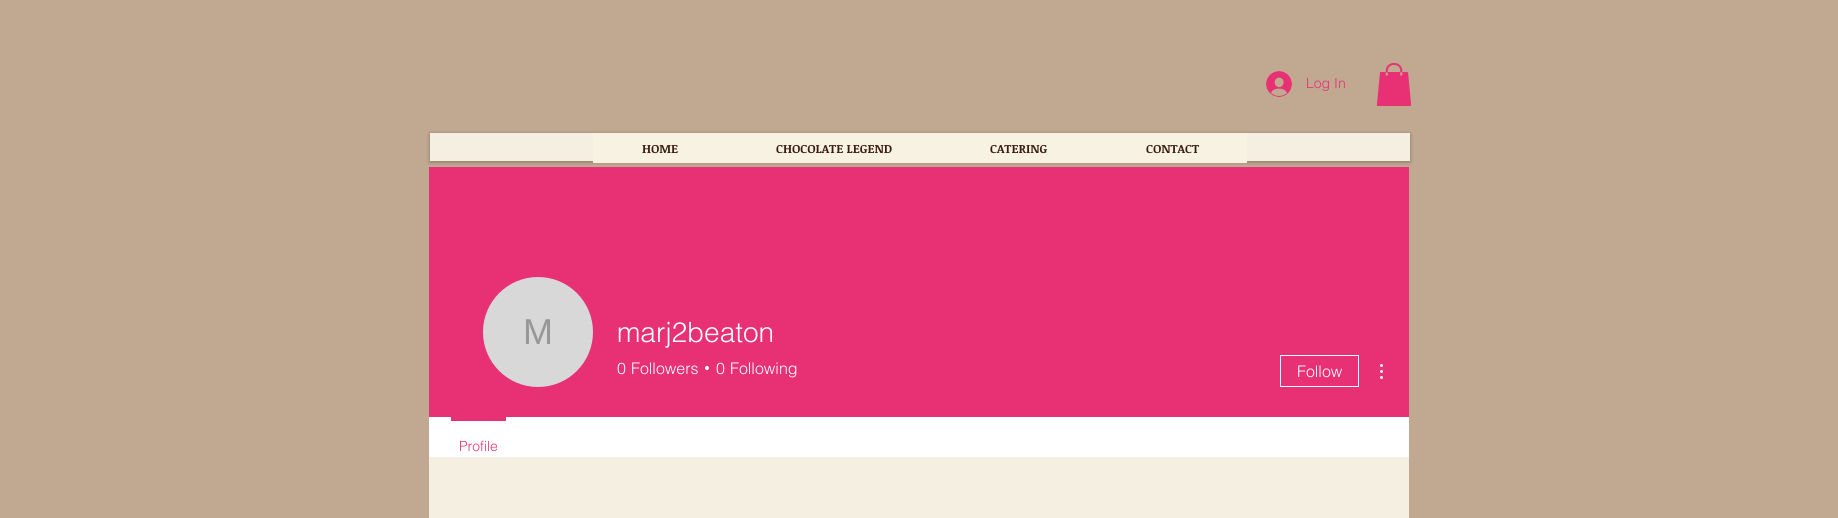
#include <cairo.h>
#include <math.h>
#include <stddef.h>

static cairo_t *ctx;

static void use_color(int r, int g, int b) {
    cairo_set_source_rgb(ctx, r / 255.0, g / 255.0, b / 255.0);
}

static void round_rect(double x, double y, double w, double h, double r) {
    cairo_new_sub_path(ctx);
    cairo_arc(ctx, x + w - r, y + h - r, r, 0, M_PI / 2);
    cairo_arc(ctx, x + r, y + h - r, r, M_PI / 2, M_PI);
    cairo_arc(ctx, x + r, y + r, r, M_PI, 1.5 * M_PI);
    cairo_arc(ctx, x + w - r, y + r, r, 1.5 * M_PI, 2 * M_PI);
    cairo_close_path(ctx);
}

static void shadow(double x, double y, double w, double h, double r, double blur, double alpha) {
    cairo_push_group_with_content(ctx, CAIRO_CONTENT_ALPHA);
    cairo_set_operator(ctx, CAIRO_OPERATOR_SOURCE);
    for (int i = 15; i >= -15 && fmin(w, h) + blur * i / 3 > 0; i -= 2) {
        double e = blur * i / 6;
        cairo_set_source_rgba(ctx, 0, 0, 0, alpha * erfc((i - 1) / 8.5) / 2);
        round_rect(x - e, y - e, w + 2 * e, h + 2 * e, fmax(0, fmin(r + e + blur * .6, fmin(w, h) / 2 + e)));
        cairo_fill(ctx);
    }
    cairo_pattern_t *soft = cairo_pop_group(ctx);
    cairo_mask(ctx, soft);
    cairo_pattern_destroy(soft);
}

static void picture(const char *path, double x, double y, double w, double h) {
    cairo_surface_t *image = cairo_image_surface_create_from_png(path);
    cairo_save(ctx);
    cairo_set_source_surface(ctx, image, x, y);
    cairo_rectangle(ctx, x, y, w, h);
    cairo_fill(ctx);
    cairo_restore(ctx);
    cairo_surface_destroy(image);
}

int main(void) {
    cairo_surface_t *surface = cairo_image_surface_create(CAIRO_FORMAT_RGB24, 1838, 518);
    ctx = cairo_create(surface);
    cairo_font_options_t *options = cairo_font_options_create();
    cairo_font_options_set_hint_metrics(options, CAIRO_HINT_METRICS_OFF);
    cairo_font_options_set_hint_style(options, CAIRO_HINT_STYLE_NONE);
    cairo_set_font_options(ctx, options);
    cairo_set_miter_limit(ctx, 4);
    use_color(192, 168, 145);
    cairo_paint(ctx);
    picture("img1.png", 1266, 71, 26, 26);
    cairo_select_font_face(ctx, "helvetica Light", CAIRO_FONT_SLANT_NORMAL, CAIRO_FONT_WEIGHT_NORMAL);
    cairo_set_font_size(ctx, 14);
    use_color(232, 49, 116);
    cairo_move_to(ctx, 1306, 88);
    cairo_show_text(ctx, "Log In");
    picture("img2.png", 1376, 63, 36, 43);
    use_color(0, 0, 0);
    shadow(430, 134, 980, 28, 0, 2, 0.3);
    use_color(244, 239, 225);
    cairo_rectangle(ctx, 430, 133, 980, 28);
    cairo_fill(ctx);
    use_color(247, 242, 226);
    cairo_rectangle(ctx, 593, 133, 654, 30);
    cairo_fill(ctx);
    cairo_select_font_face(ctx, "Noticia Text", CAIRO_FONT_SLANT_NORMAL, CAIRO_FONT_WEIGHT_BOLD);
    cairo_set_font_size(ctx, 12);
    use_color(58, 28, 19);
    cairo_move_to(ctx, 642, 153);
    cairo_show_text(ctx, "HOME");
    cairo_move_to(ctx, 776, 153);
    cairo_show_text(ctx, "CHOCOLATE LEGEND");
    cairo_move_to(ctx, 990, 153);
    cairo_show_text(ctx, "CATERING");
    cairo_move_to(ctx, 1146, 153);
    cairo_show_text(ctx, "CONTACT");
    use_color(232, 49, 116);
    cairo_rectangle(ctx, 429, 167, 980, 250);
    cairo_fill(ctx);
    use_color(216, 216, 216);
    cairo_arc(ctx, 538, 332, 55, 0, 2 * M_PI);
    cairo_fill(ctx);
    cairo_select_font_face(ctx, "Liberation Sans", CAIRO_FONT_SLANT_NORMAL, CAIRO_FONT_WEIGHT_NORMAL);
    cairo_set_font_size(ctx, 36);
    use_color(151, 151, 151);
    cairo_move_to(ctx, 523, 344);
    cairo_show_text(ctx, "M");
    cairo_select_font_face(ctx, "helvetica Light", CAIRO_FONT_SLANT_NORMAL, CAIRO_FONT_WEIGHT_NORMAL);
    cairo_set_font_size(ctx, 28);
    use_color(255, 255, 255);
    cairo_move_to(ctx, 617, 342);
    cairo_show_text(ctx, "marj2beaton");
    cairo_set_font_size(ctx, 16);
    cairo_move_to(ctx, 617, 374);
    cairo_show_text(ctx, "0");
    cairo_move_to(ctx, 631, 374);
    cairo_show_text(ctx, "Followers");
    cairo_new_path(ctx);
    cairo_arc(ctx, 707, 368, 2, 0, 2 * M_PI);
    cairo_fill(ctx);
    cairo_move_to(ctx, 716, 374);
    cairo_show_text(ctx, "0");
    cairo_move_to(ctx, 730, 374);
    cairo_show_text(ctx, "Following");
    cairo_rectangle(ctx, 1280.5, 355.5, 78, 31);
    cairo_set_line_width(ctx, 1);
    cairo_stroke(ctx);
    cairo_move_to(ctx, 1297, 377);
    cairo_show_text(ctx, "Follow");
    picture("img3.png", 1380, 364, 3, 15);
    cairo_rectangle(ctx, 429, 417, 980, 40);
    cairo_fill(ctx);
    use_color(232, 49, 116);
    cairo_rectangle(ctx, 451, 417, 55, 4);
    cairo_fill(ctx);
    cairo_set_font_size(ctx, 14);
    cairo_move_to(ctx, 459, 451);
    cairo_show_text(ctx, "Profile");
    use_color(244, 239, 225);
    cairo_rectangle(ctx, 429, 457, 980, 61);
    cairo_fill(ctx);
    cairo_surface_write_to_png(surface, "result.png");
    cairo_font_options_destroy(options);
    cairo_destroy(ctx);
    cairo_surface_destroy(surface);
    return 0;
}
